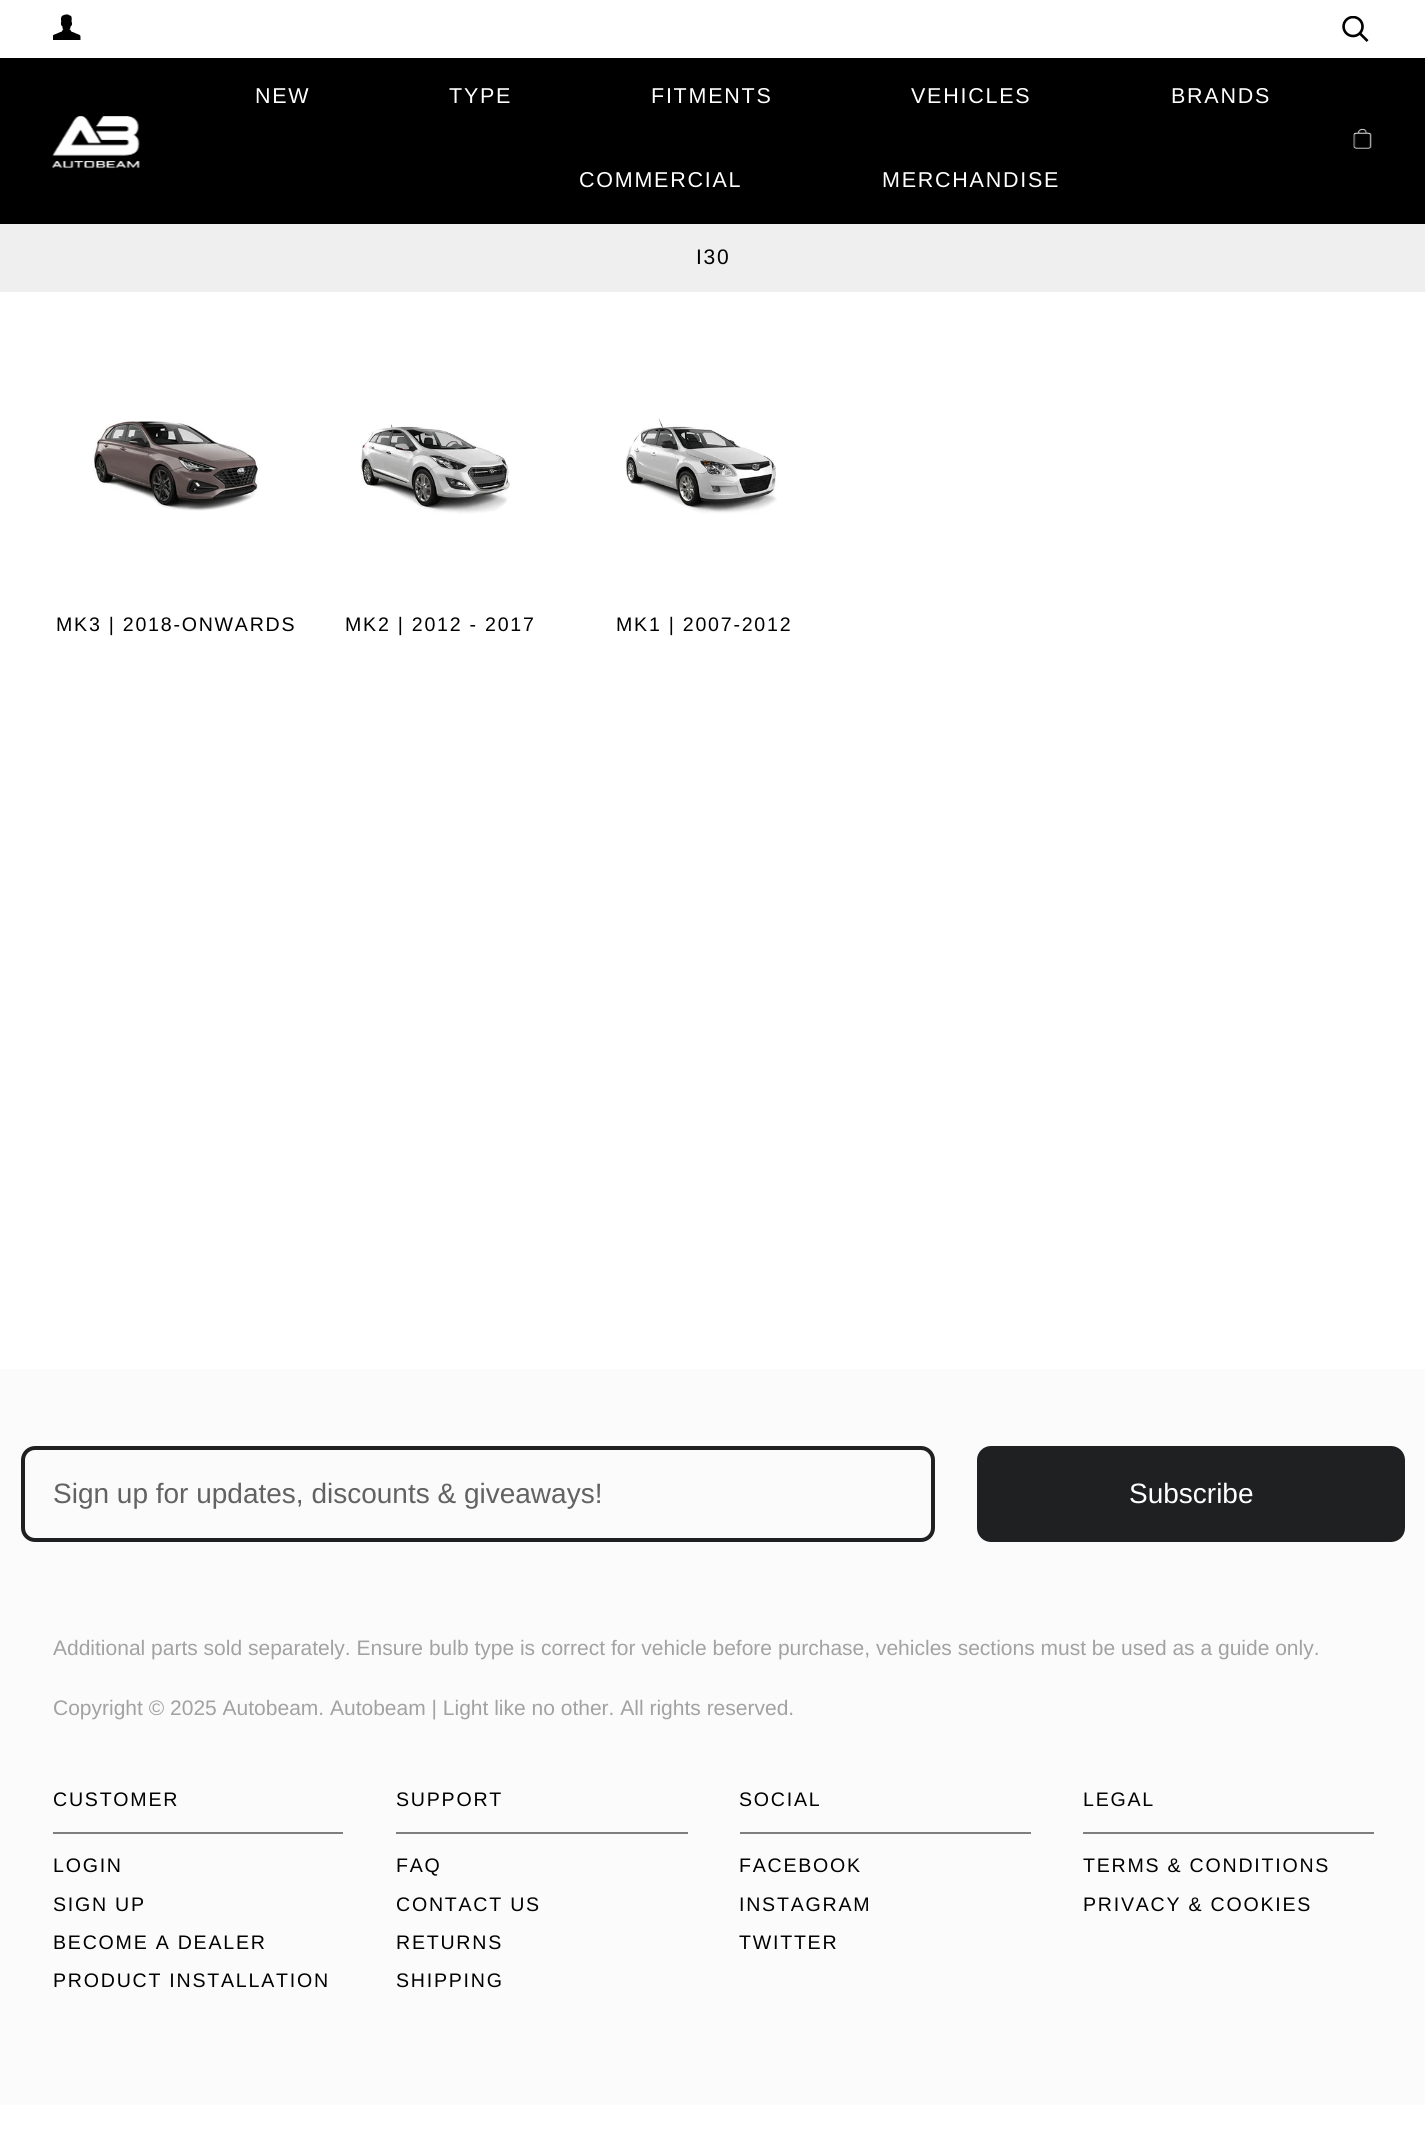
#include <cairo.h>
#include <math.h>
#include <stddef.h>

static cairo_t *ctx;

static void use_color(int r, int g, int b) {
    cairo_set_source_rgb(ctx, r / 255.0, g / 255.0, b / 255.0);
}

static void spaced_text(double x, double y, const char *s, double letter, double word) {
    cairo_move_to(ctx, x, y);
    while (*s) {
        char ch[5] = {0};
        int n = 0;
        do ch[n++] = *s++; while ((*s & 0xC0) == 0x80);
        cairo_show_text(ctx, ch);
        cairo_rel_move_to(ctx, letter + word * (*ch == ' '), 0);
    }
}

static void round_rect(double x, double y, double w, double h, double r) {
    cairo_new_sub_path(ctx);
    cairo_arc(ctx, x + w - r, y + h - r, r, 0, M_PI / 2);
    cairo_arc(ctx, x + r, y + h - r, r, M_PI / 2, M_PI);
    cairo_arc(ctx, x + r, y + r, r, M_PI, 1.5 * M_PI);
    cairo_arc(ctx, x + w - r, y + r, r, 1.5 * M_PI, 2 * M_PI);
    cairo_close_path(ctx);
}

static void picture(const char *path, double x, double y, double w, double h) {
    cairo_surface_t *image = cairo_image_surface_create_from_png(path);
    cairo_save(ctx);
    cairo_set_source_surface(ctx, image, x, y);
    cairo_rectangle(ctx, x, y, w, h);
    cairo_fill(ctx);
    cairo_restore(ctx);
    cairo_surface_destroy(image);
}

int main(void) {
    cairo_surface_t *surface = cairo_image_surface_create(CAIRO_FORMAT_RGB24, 1425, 2143);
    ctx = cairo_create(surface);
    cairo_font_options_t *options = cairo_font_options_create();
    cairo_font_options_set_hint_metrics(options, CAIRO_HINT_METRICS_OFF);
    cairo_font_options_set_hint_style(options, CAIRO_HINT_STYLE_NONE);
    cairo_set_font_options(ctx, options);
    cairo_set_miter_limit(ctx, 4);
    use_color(255, 255, 255);
    cairo_paint(ctx);
    picture("img1.png", 53, 14, 28, 26);
    picture("img2.png", 1342, 16, 27, 26);
    use_color(0, 0, 0);
    cairo_rectangle(ctx, 0, 58, 1425, 166);
    cairo_fill(ctx);
    picture("img3.png", 52, 116, 88, 53);
    cairo_select_font_face(ctx, "Liberation Sans", CAIRO_FONT_SLANT_NORMAL, CAIRO_FONT_WEIGHT_NORMAL);
    cairo_set_font_size(ctx, 21.5);
    use_color(255, 255, 255);
    spaced_text(255, 103, "NEW", 1.75, 0);
    spaced_text(449, 103, "TYPE", 1.75, 0);
    spaced_text(651, 103, "FITMENTS", 1.75, 0);
    spaced_text(911, 103, "VEHICLES", 1.75, 0);
    spaced_text(1171, 103, "BRANDS", 1.75, 0);
    spaced_text(579, 187, "COMMERCIAL", 1.75, 0);
    spaced_text(882, 187, "MERCHANDISE", 1.75, 0);
    picture("img4.png", 1353, 128, 19, 21);
    use_color(239, 239, 239);
    cairo_rectangle(ctx, 0, 224, 1425, 68);
    cairo_fill(ctx);
    cairo_set_font_size(ctx, 21);
    use_color(0, 0, 0);
    spaced_text(696, 264, "I30", 1.75, 0);
    picture("img5.png", 92, 421, 166, 90);
    cairo_set_font_size(ctx, 19.6);
    spaced_text(56, 631, "MK3 | 2018-ONWARDS", 1.75, 0);
    picture("img6.png", 360, 424, 150, 90);
    spaced_text(345, 631, "MK2 | 2012 - 2017", 1.75, 0);
    picture("img7.png", 625, 418, 152, 96);
    spaced_text(616, 631, "MK1 | 2007-2012", 1.75, 0);
    use_color(251, 251, 251);
    cairo_rectangle(ctx, 0, 1369, 1425, 736);
    cairo_fill(ctx);
    round_rect(23, 1448, 910, 92, 12);
    use_color(31, 32, 33);
    cairo_set_line_width(ctx, 4);
    cairo_stroke(ctx);
    cairo_set_font_size(ctx, 28);
    use_color(98, 98, 98);
    cairo_move_to(ctx, 53, 1503);
    cairo_show_text(ctx, "Sign up for updates, discounts & giveaways!");
    use_color(31, 32, 33);
    round_rect(979, 1448, 424, 92, 12);
    cairo_fill_preserve(ctx);
    cairo_stroke(ctx);
    use_color(255, 255, 255);
    cairo_move_to(ctx, 1129, 1503);
    cairo_show_text(ctx, "Subscribe");
    cairo_set_font_size(ctx, 21);
    use_color(162, 162, 162);
    cairo_move_to(ctx, 53, 1655);
    cairo_show_text(ctx, "Additional parts sold separately. Ensure bulb type is correct for vehicle before purchase, vehicles sections must be used as a guide only.");
    cairo_move_to(ctx, 53, 1715);
    cairo_show_text(ctx, "Copyright © 2025 Autobeam. Autobeam | Light like no other. All rights reserved.");
    cairo_set_font_size(ctx, 19.6);
    use_color(0, 0, 0);
    spaced_text(53, 1806, "CUSTOMER", 1.75, 0);
    use_color(126, 126, 126);
    cairo_rectangle(ctx, 53, 1832, 290, 2);
    cairo_fill(ctx);
    use_color(0, 0, 0);
    spaced_text(53, 1872, "LOGIN", 1.75, 0);
    spaced_text(53, 1911, "SIGN UP", 1.75, 0);
    spaced_text(53, 1949, "BECOME A DEALER", 1.75, 0);
    spaced_text(53, 1987, "PRODUCT INSTALLATION", 1.75, 0);
    spaced_text(396, 1806, "SUPPORT", 1.75, 0);
    use_color(126, 126, 126);
    cairo_rectangle(ctx, 396, 1832, 292, 2);
    cairo_fill(ctx);
    use_color(0, 0, 0);
    spaced_text(396, 1872, "FAQ", 1.75, 0);
    spaced_text(396, 1911, "CONTACT US", 1.75, 0);
    spaced_text(396, 1949, "RETURNS", 1.75, 0);
    spaced_text(396, 1987, "SHIPPING", 1.75, 0);
    spaced_text(739, 1806, "SOCIAL", 1.75, 0);
    use_color(126, 126, 126);
    cairo_rectangle(ctx, 740, 1832, 291, 2);
    cairo_fill(ctx);
    use_color(0, 0, 0);
    spaced_text(739, 1872, "FACEBOOK", 1.75, 0);
    spaced_text(739, 1911, "INSTAGRAM", 1.75, 0);
    spaced_text(739, 1949, "TWITTER", 1.75, 0);
    spaced_text(1083, 1806, "LEGAL", 1.75, 0);
    use_color(126, 126, 126);
    cairo_rectangle(ctx, 1083, 1832, 291, 2);
    cairo_fill(ctx);
    use_color(0, 0, 0);
    spaced_text(1083, 1872, "TERMS & CONDITIONS", 1.75, 0);
    spaced_text(1083, 1911, "PRIVACY & COOKIES", 1.75, 0);
    cairo_surface_write_to_png(surface, "result.png");
    cairo_font_options_destroy(options);
    cairo_destroy(ctx);
    cairo_surface_destroy(surface);
    return 0;
}
